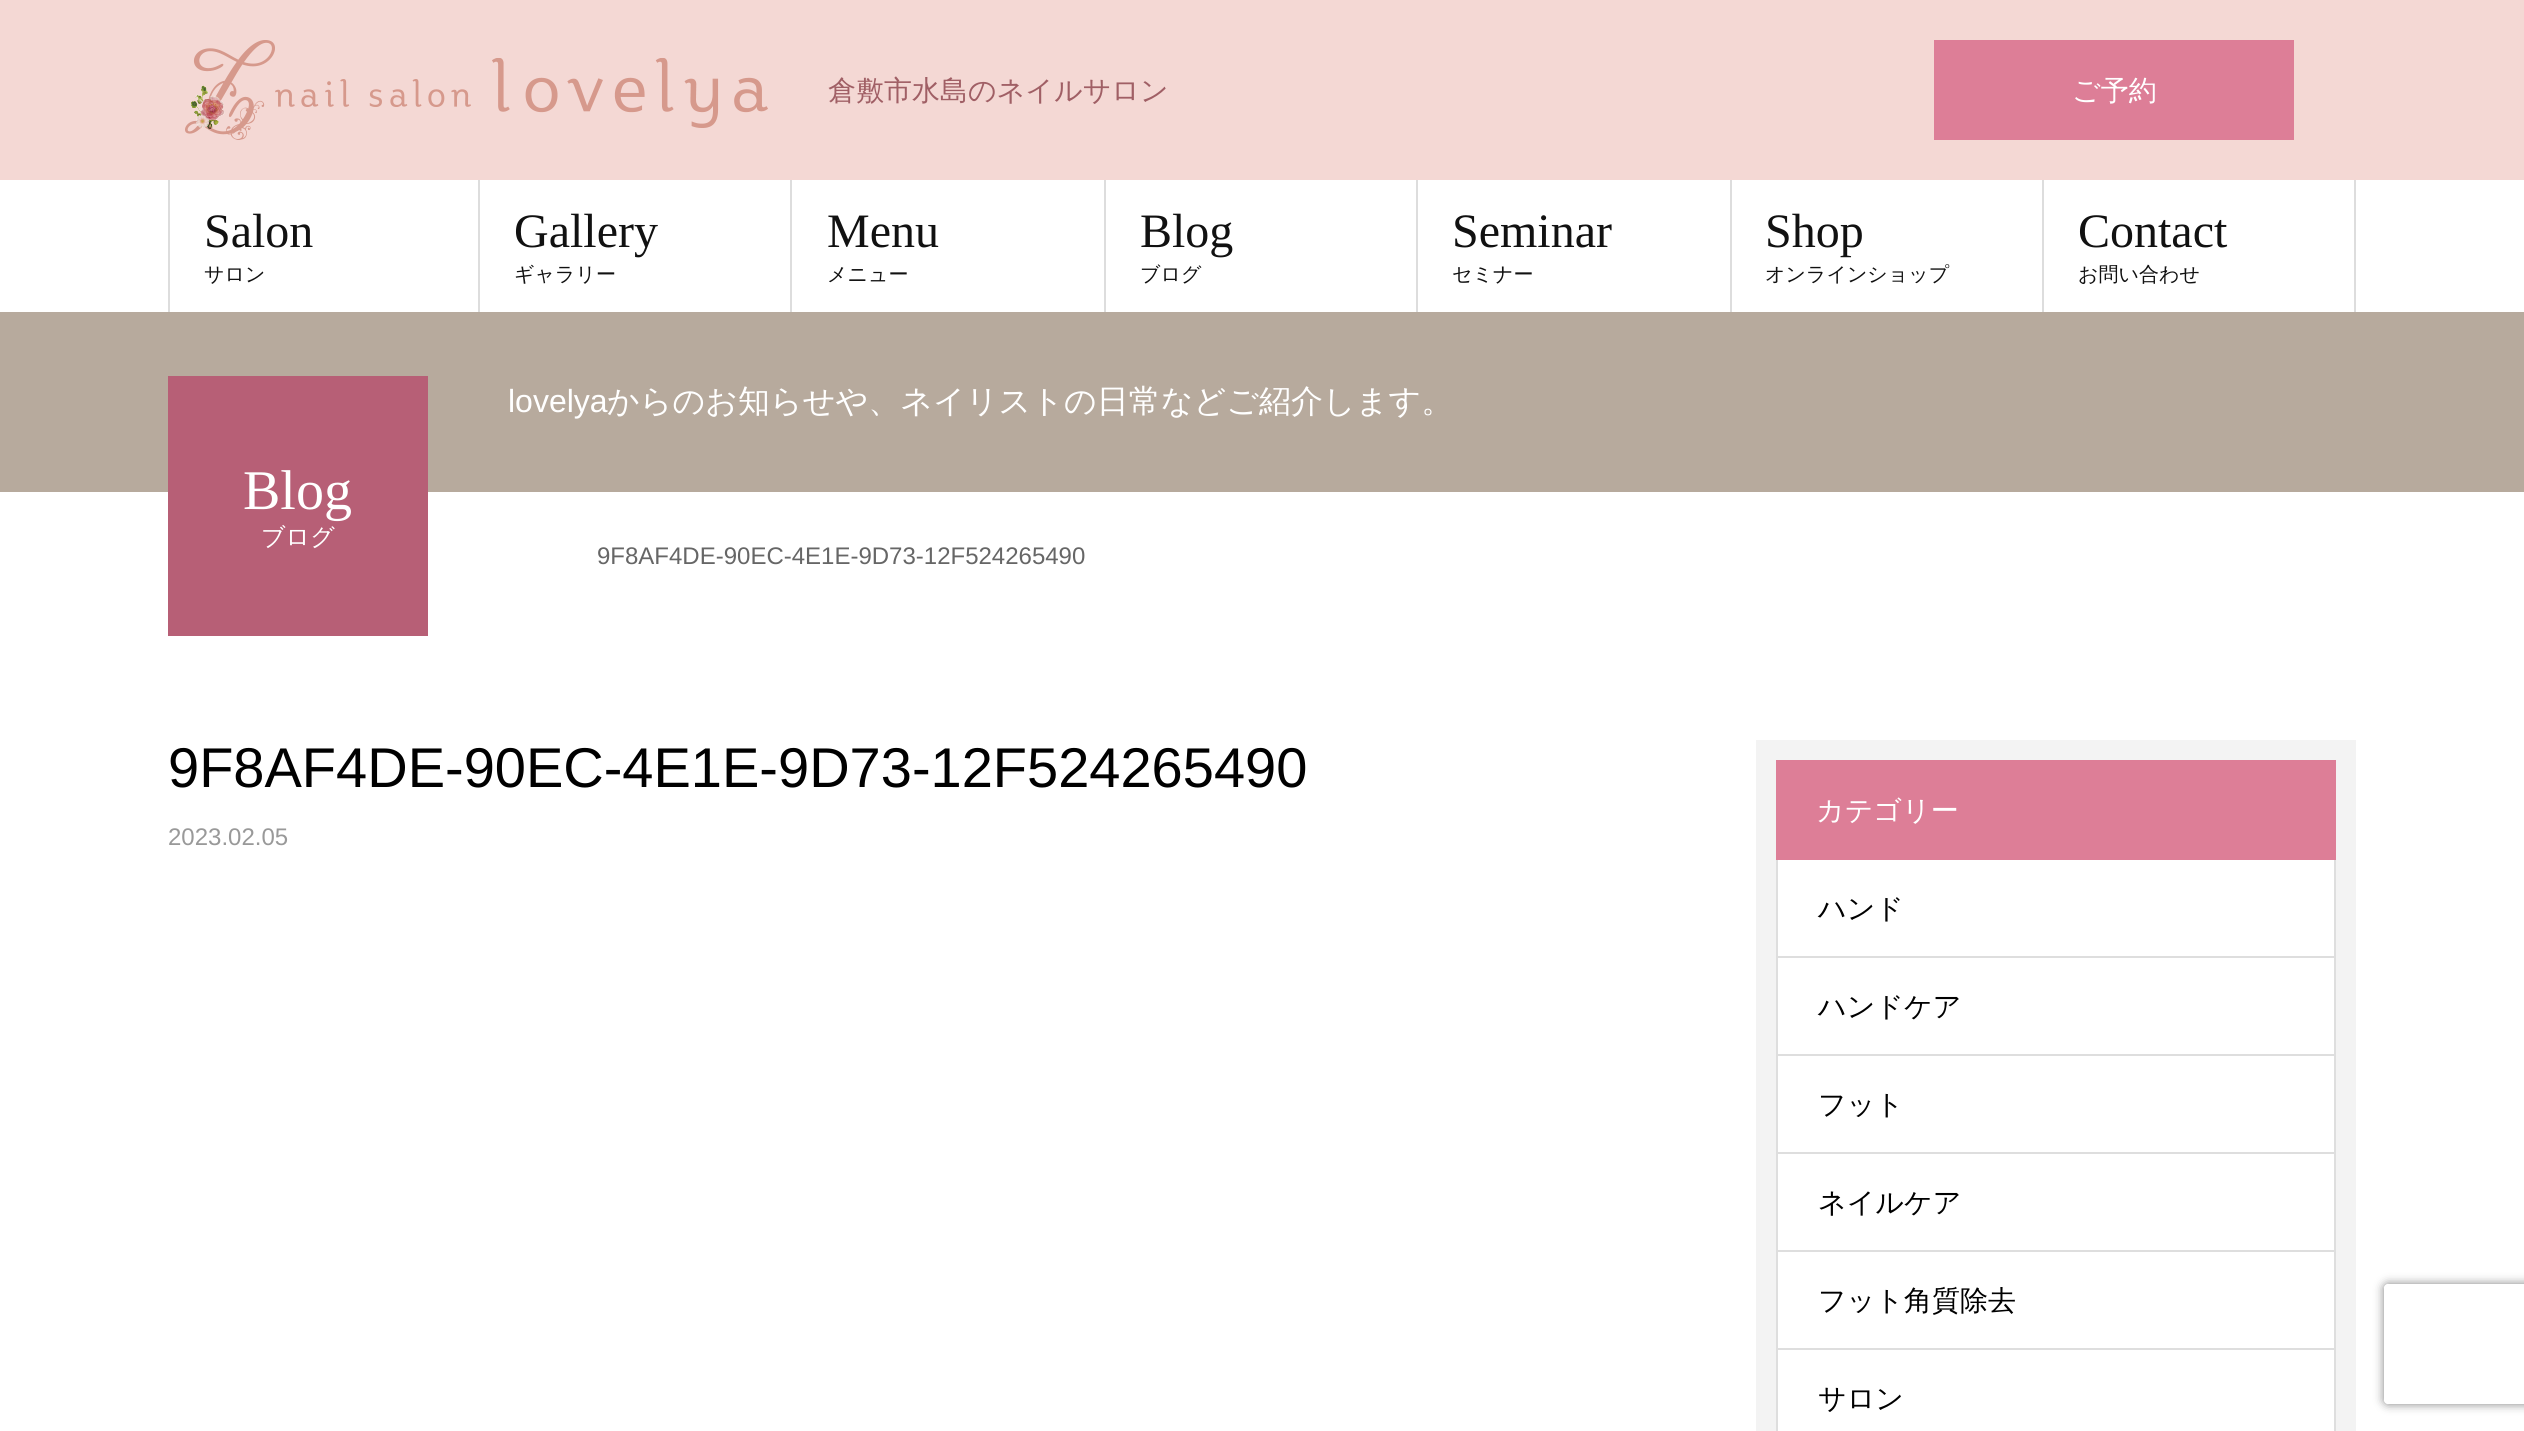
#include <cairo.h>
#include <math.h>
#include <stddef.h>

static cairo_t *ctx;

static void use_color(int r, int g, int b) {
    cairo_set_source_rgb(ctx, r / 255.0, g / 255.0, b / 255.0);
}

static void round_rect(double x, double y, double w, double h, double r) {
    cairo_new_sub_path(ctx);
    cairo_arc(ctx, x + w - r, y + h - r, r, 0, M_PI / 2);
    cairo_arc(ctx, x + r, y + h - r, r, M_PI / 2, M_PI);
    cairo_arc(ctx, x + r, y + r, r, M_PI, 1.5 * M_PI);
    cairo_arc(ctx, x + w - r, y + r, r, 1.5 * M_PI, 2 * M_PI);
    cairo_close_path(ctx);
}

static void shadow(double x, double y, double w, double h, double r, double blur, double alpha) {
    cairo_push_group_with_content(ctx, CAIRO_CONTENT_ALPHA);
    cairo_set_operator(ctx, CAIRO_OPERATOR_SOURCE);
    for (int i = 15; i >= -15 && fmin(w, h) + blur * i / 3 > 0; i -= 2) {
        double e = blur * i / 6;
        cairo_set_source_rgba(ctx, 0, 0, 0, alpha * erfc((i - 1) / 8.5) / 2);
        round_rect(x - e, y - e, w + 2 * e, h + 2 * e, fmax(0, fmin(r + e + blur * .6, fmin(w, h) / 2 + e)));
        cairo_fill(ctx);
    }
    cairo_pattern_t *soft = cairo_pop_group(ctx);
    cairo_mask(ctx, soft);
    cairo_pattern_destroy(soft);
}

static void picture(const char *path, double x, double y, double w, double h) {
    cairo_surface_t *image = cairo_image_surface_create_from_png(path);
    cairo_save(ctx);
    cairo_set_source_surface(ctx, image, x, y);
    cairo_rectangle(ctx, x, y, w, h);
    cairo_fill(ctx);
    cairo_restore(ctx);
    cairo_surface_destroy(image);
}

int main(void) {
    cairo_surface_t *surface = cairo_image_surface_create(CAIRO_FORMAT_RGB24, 2524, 1431);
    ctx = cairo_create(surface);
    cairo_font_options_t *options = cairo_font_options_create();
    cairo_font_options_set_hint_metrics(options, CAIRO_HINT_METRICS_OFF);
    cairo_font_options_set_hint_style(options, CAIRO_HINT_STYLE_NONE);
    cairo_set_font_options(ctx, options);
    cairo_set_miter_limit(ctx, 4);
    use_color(255, 255, 255);
    cairo_paint(ctx);
    use_color(244, 216, 212);
    cairo_rectangle(ctx, 0, 0, 2524, 180);
    cairo_fill(ctx);
    picture("img1.png", 185, 40, 583, 100);
    cairo_select_font_face(ctx, "WenQuanYi Zen Hei Medium", CAIRO_FONT_SLANT_NORMAL, CAIRO_FONT_WEIGHT_NORMAL);
    cairo_set_font_size(ctx, 28);
    use_color(160, 95, 101);
    cairo_move_to(ctx, 828, 100);
    cairo_show_text(ctx, "倉敷市水島のネイルサロン");
    use_color(221, 126, 151);
    cairo_rectangle(ctx, 1934, 40, 360, 100);
    cairo_fill(ctx);
    use_color(255, 255, 255);
    cairo_move_to(ctx, 2072, 100);
    cairo_show_text(ctx, "ご予約");
    use_color(221, 221, 221);
    cairo_rectangle(ctx, 478, 180, 2, 132);
    cairo_fill(ctx);
    cairo_rectangle(ctx, 168, 180, 2, 132);
    cairo_fill(ctx);
    cairo_select_font_face(ctx, "Liberation Serif", CAIRO_FONT_SLANT_NORMAL, CAIRO_FONT_WEIGHT_NORMAL);
    cairo_set_font_size(ctx, 48);
    use_color(17, 17, 17);
    cairo_move_to(ctx, 204, 247);
    cairo_show_text(ctx, "Salon");
    cairo_select_font_face(ctx, "WenQuanYi Zen Hei Medium", CAIRO_FONT_SLANT_NORMAL, CAIRO_FONT_WEIGHT_NORMAL);
    cairo_set_font_size(ctx, 20);
    cairo_move_to(ctx, 204, 281);
    cairo_show_text(ctx, "サロン");
    use_color(221, 221, 221);
    cairo_rectangle(ctx, 790, 180, 2, 132);
    cairo_fill(ctx);
    cairo_select_font_face(ctx, "Liberation Serif", CAIRO_FONT_SLANT_NORMAL, CAIRO_FONT_WEIGHT_NORMAL);
    cairo_set_font_size(ctx, 48);
    use_color(17, 17, 17);
    cairo_move_to(ctx, 514, 247);
    cairo_show_text(ctx, "Gallery");
    cairo_select_font_face(ctx, "WenQuanYi Zen Hei Medium", CAIRO_FONT_SLANT_NORMAL, CAIRO_FONT_WEIGHT_NORMAL);
    cairo_set_font_size(ctx, 20);
    cairo_move_to(ctx, 514, 281);
    cairo_show_text(ctx, "ギャラリー");
    use_color(221, 221, 221);
    cairo_rectangle(ctx, 1104, 180, 2, 132);
    cairo_fill(ctx);
    cairo_select_font_face(ctx, "Liberation Serif", CAIRO_FONT_SLANT_NORMAL, CAIRO_FONT_WEIGHT_NORMAL);
    cairo_set_font_size(ctx, 48);
    use_color(17, 17, 17);
    cairo_move_to(ctx, 827, 247);
    cairo_show_text(ctx, "Menu");
    cairo_select_font_face(ctx, "WenQuanYi Zen Hei Medium", CAIRO_FONT_SLANT_NORMAL, CAIRO_FONT_WEIGHT_NORMAL);
    cairo_set_font_size(ctx, 20);
    cairo_move_to(ctx, 827, 281);
    cairo_show_text(ctx, "メニュー");
    use_color(221, 221, 221);
    cairo_rectangle(ctx, 1416, 180, 2, 132);
    cairo_fill(ctx);
    cairo_select_font_face(ctx, "Liberation Serif", CAIRO_FONT_SLANT_NORMAL, CAIRO_FONT_WEIGHT_NORMAL);
    cairo_set_font_size(ctx, 48);
    use_color(17, 17, 17);
    cairo_move_to(ctx, 1140, 247);
    cairo_show_text(ctx, "Blog");
    cairo_select_font_face(ctx, "WenQuanYi Zen Hei Medium", CAIRO_FONT_SLANT_NORMAL, CAIRO_FONT_WEIGHT_NORMAL);
    cairo_set_font_size(ctx, 20);
    cairo_move_to(ctx, 1140, 281);
    cairo_show_text(ctx, "ブログ");
    use_color(221, 221, 221);
    cairo_rectangle(ctx, 1730, 180, 2, 132);
    cairo_fill(ctx);
    cairo_select_font_face(ctx, "Liberation Serif", CAIRO_FONT_SLANT_NORMAL, CAIRO_FONT_WEIGHT_NORMAL);
    cairo_set_font_size(ctx, 48);
    use_color(17, 17, 17);
    cairo_move_to(ctx, 1452, 247);
    cairo_show_text(ctx, "Seminar");
    cairo_select_font_face(ctx, "WenQuanYi Zen Hei Medium", CAIRO_FONT_SLANT_NORMAL, CAIRO_FONT_WEIGHT_NORMAL);
    cairo_set_font_size(ctx, 20);
    cairo_move_to(ctx, 1452, 281);
    cairo_show_text(ctx, "セミナー");
    use_color(221, 221, 221);
    cairo_rectangle(ctx, 2042, 180, 2, 132);
    cairo_fill(ctx);
    cairo_select_font_face(ctx, "Liberation Serif", CAIRO_FONT_SLANT_NORMAL, CAIRO_FONT_WEIGHT_NORMAL);
    cairo_set_font_size(ctx, 48);
    use_color(17, 17, 17);
    cairo_move_to(ctx, 1765, 247);
    cairo_show_text(ctx, "Shop");
    cairo_select_font_face(ctx, "WenQuanYi Zen Hei Medium", CAIRO_FONT_SLANT_NORMAL, CAIRO_FONT_WEIGHT_NORMAL);
    cairo_set_font_size(ctx, 20);
    cairo_move_to(ctx, 1765, 281);
    cairo_show_text(ctx, "オンラインショップ");
    use_color(221, 221, 221);
    cairo_rectangle(ctx, 2354, 180, 2, 132);
    cairo_fill(ctx);
    cairo_select_font_face(ctx, "Liberation Serif", CAIRO_FONT_SLANT_NORMAL, CAIRO_FONT_WEIGHT_NORMAL);
    cairo_set_font_size(ctx, 48);
    use_color(17, 17, 17);
    cairo_move_to(ctx, 2078, 247);
    cairo_show_text(ctx, "Contact");
    cairo_select_font_face(ctx, "WenQuanYi Zen Hei Medium", CAIRO_FONT_SLANT_NORMAL, CAIRO_FONT_WEIGHT_NORMAL);
    cairo_set_font_size(ctx, 20);
    cairo_move_to(ctx, 2078, 281);
    cairo_show_text(ctx, "お問い合わせ");
    use_color(183, 170, 157);
    cairo_rectangle(ctx, 0, 312, 2524, 180);
    cairo_fill(ctx);
    cairo_select_font_face(ctx, "Liberation Sans", CAIRO_FONT_SLANT_NORMAL, CAIRO_FONT_WEIGHT_NORMAL);
    cairo_set_font_size(ctx, 32);
    use_color(255, 255, 255);
    cairo_move_to(ctx, 508, 412);
    cairo_show_text(ctx, "lovelya");
    cairo_select_font_face(ctx, "WenQuanYi Zen Hei Medium", CAIRO_FONT_SLANT_NORMAL, CAIRO_FONT_WEIGHT_NORMAL);
    cairo_move_to(ctx, 607, 412);
    cairo_show_text(ctx, "からのお知らせや、ネイリストの日常などご紹介します。");
    use_color(183, 95, 118);
    cairo_rectangle(ctx, 168, 376, 260, 260);
    cairo_fill(ctx);
    cairo_select_font_face(ctx, "Liberation Serif", CAIRO_FONT_SLANT_NORMAL, CAIRO_FONT_WEIGHT_NORMAL);
    cairo_set_font_size(ctx, 56);
    use_color(255, 255, 255);
    cairo_move_to(ctx, 243, 509);
    cairo_show_text(ctx, "Blog");
    cairo_select_font_face(ctx, "WenQuanYi Zen Hei Medium", CAIRO_FONT_SLANT_NORMAL, CAIRO_FONT_WEIGHT_NORMAL);
    cairo_set_font_size(ctx, 24);
    cairo_move_to(ctx, 261, 545);
    cairo_show_text(ctx, "ブログ");
    cairo_select_font_face(ctx, "Liberation Sans", CAIRO_FONT_SLANT_NORMAL, CAIRO_FONT_WEIGHT_NORMAL);
    use_color(102, 102, 102);
    cairo_move_to(ctx, 597, 564);
    cairo_show_text(ctx, "9F8AF4DE-90EC-4E1E-9D73-12F524265490");
    cairo_set_font_size(ctx, 56);
    use_color(0, 0, 0);
    cairo_move_to(ctx, 168, 787);
    cairo_show_text(ctx, "9F8AF4DE-90EC-4E1E-9D73-12F524265490");
    cairo_set_font_size(ctx, 24);
    use_color(153, 153, 153);
    cairo_move_to(ctx, 168, 845);
    cairo_show_text(ctx, "2023.02.05");
    use_color(243, 243, 243);
    cairo_rectangle(ctx, 1756, 740, 600, 691);
    cairo_fill(ctx);
    cairo_rectangle(ctx, 1777, 859, 558, 98);
    use_color(222, 222, 222);
    cairo_stroke(ctx);
    use_color(221, 126, 151);
    cairo_rectangle(ctx, 1776, 760, 560, 100);
    cairo_fill(ctx);
    cairo_select_font_face(ctx, "WenQuanYi Zen Hei Medium", CAIRO_FONT_SLANT_NORMAL, CAIRO_FONT_WEIGHT_NORMAL);
    cairo_set_font_size(ctx, 28);
    use_color(255, 255, 255);
    cairo_move_to(ctx, 1816, 820);
    cairo_show_text(ctx, "カテゴリー");
    cairo_rectangle(ctx, 1778, 860, 556, 96);
    cairo_fill(ctx);
    use_color(0, 0, 0);
    cairo_move_to(ctx, 1818, 918);
    cairo_show_text(ctx, "ハンド");
    use_color(222, 222, 222);
    cairo_rectangle(ctx, 2334, 958, 2, 473);
    cairo_fill(ctx);
    cairo_rectangle(ctx, 1776, 1054, 560, 2);
    cairo_fill(ctx);
    cairo_rectangle(ctx, 1776, 958, 2, 98);
    cairo_fill(ctx);
    use_color(255, 255, 255);
    cairo_rectangle(ctx, 1778, 958, 556, 96);
    cairo_fill(ctx);
    use_color(0, 0, 0);
    cairo_move_to(ctx, 1818, 1016);
    cairo_show_text(ctx, "ハンドケア");
    use_color(222, 222, 222);
    cairo_rectangle(ctx, 1776, 1152, 560, 2);
    cairo_fill(ctx);
    cairo_rectangle(ctx, 1776, 1056, 2, 98);
    cairo_fill(ctx);
    use_color(255, 255, 255);
    cairo_rectangle(ctx, 1778, 1056, 556, 96);
    cairo_fill(ctx);
    use_color(0, 0, 0);
    cairo_move_to(ctx, 1818, 1114);
    cairo_show_text(ctx, "フット");
    use_color(222, 222, 222);
    cairo_rectangle(ctx, 1776, 1250, 560, 2);
    cairo_fill(ctx);
    cairo_rectangle(ctx, 1776, 1154, 2, 98);
    cairo_fill(ctx);
    use_color(255, 255, 255);
    cairo_rectangle(ctx, 1778, 1154, 556, 96);
    cairo_fill(ctx);
    use_color(0, 0, 0);
    cairo_move_to(ctx, 1818, 1212);
    cairo_show_text(ctx, "ネイルケア");
    use_color(222, 222, 222);
    cairo_rectangle(ctx, 1776, 1348, 560, 2);
    cairo_fill(ctx);
    cairo_rectangle(ctx, 1776, 1252, 2, 179);
    cairo_fill(ctx);
    use_color(255, 255, 255);
    cairo_rectangle(ctx, 1778, 1252, 556, 96);
    cairo_fill(ctx);
    use_color(0, 0, 0);
    cairo_move_to(ctx, 1818, 1310);
    cairo_show_text(ctx, "フット角質除去");
    use_color(255, 255, 255);
    cairo_rectangle(ctx, 1778, 1350, 556, 81);
    cairo_fill(ctx);
    use_color(0, 0, 0);
    cairo_move_to(ctx, 1818, 1408);
    cairo_show_text(ctx, "サロン");
    cairo_save(ctx);
    cairo_set_fill_rule(ctx, CAIRO_FILL_RULE_EVEN_ODD);
    cairo_new_path(ctx);
    cairo_move_to(ctx, 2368, 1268);
    cairo_line_to(ctx, 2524, 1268);
    cairo_line_to(ctx, 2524, 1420);
    cairo_line_to(ctx, 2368, 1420);
    cairo_close_path(ctx);
    cairo_move_to(ctx, 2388, 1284);
    cairo_line_to(ctx, 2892, 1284);
    cairo_curve_to(ctx, 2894, 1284, 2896, 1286, 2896, 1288);
    cairo_line_to(ctx, 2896, 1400);
    cairo_curve_to(ctx, 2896, 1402, 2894, 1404, 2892, 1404);
    cairo_line_to(ctx, 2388, 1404);
    cairo_curve_to(ctx, 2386, 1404, 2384, 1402, 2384, 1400);
    cairo_line_to(ctx, 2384, 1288);
    cairo_curve_to(ctx, 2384, 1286, 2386, 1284, 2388, 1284);
    cairo_close_path(ctx);
    cairo_clip(ctx);
    use_color(128, 128, 128);
    shadow(2384, 1284, 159, 120, 4, 5, 1);
    cairo_restore(ctx);
    cairo_surface_write_to_png(surface, "result.png");
    cairo_font_options_destroy(options);
    cairo_destroy(ctx);
    cairo_surface_destroy(surface);
    return 0;
}
